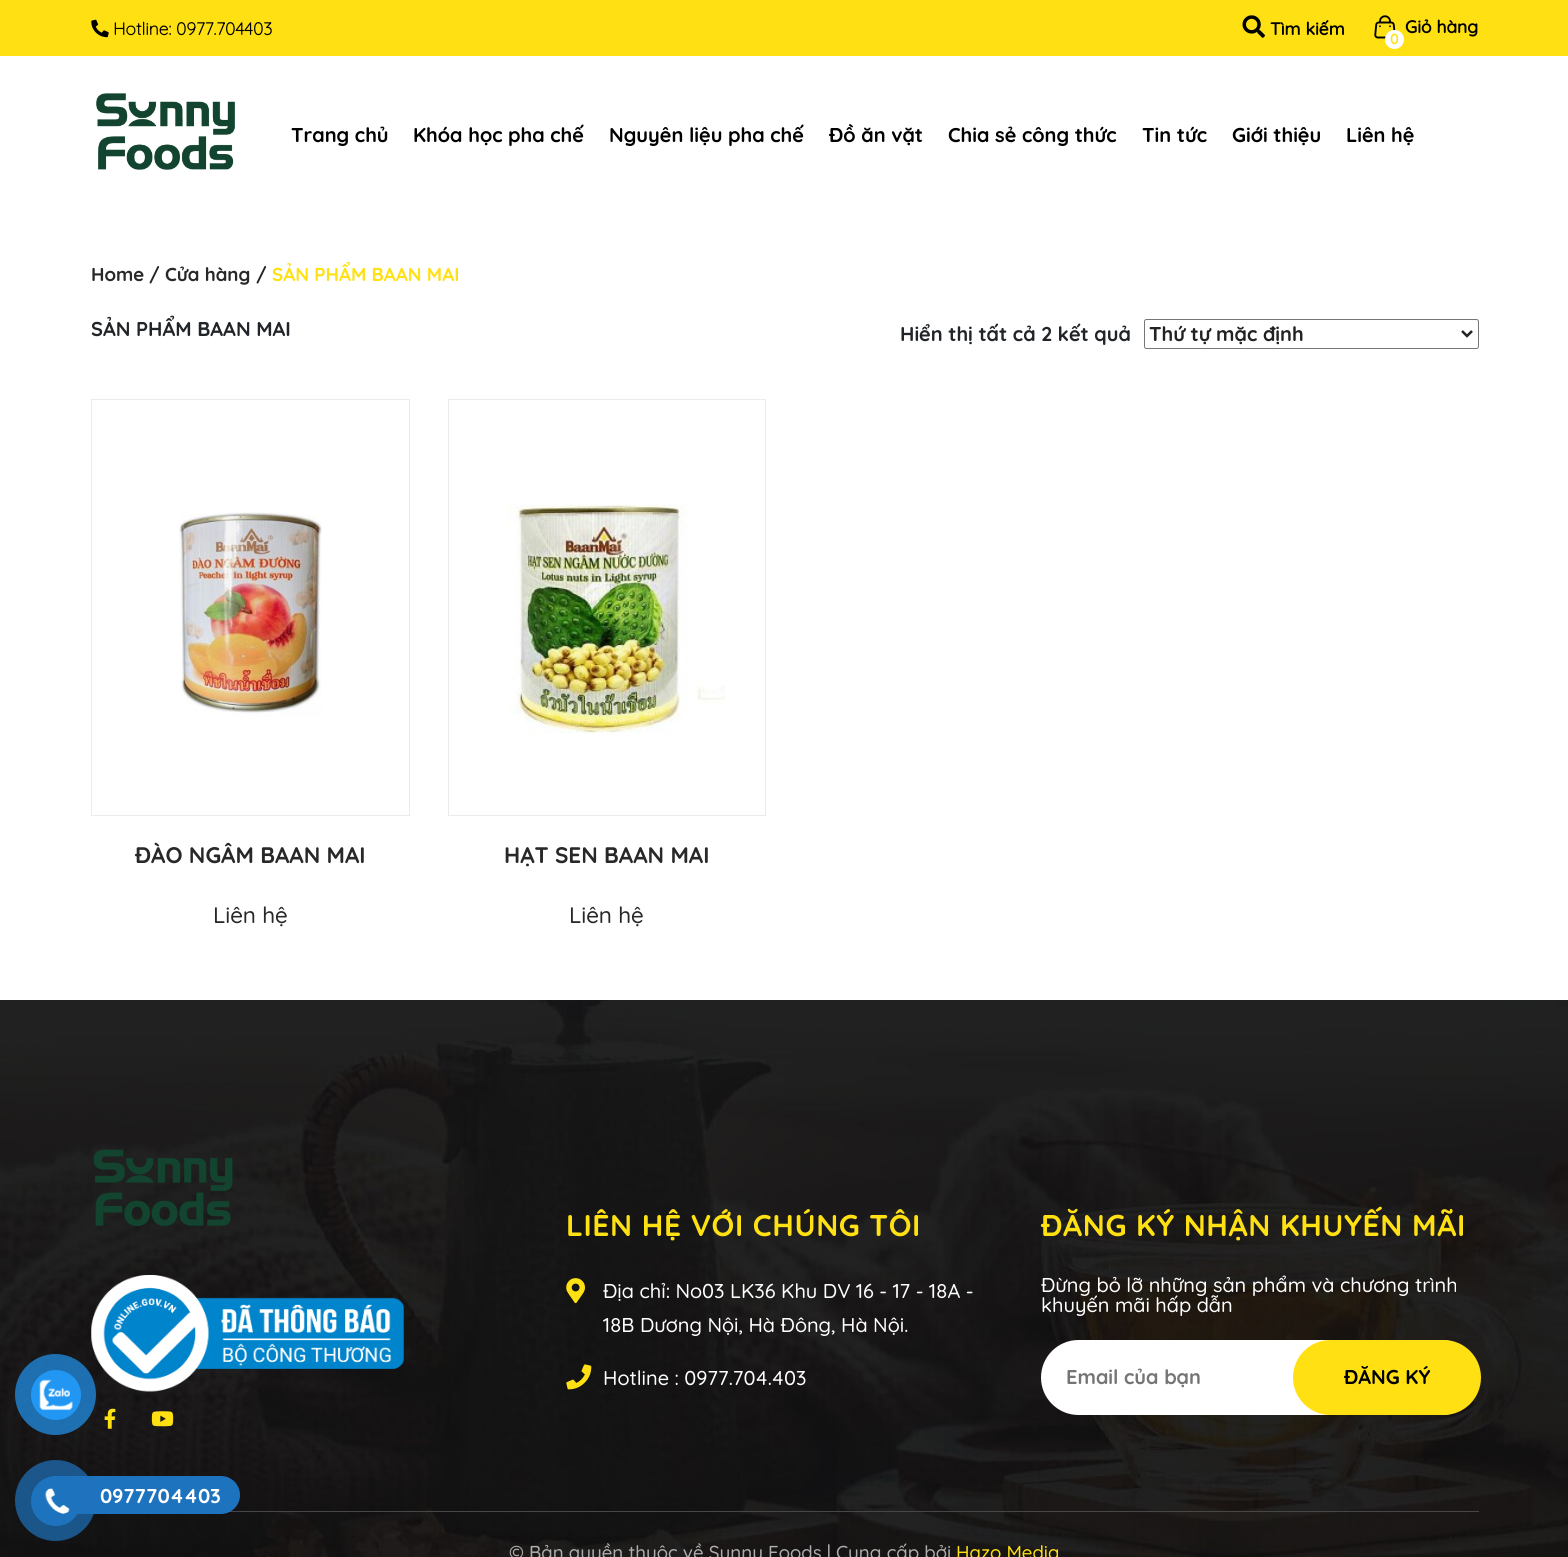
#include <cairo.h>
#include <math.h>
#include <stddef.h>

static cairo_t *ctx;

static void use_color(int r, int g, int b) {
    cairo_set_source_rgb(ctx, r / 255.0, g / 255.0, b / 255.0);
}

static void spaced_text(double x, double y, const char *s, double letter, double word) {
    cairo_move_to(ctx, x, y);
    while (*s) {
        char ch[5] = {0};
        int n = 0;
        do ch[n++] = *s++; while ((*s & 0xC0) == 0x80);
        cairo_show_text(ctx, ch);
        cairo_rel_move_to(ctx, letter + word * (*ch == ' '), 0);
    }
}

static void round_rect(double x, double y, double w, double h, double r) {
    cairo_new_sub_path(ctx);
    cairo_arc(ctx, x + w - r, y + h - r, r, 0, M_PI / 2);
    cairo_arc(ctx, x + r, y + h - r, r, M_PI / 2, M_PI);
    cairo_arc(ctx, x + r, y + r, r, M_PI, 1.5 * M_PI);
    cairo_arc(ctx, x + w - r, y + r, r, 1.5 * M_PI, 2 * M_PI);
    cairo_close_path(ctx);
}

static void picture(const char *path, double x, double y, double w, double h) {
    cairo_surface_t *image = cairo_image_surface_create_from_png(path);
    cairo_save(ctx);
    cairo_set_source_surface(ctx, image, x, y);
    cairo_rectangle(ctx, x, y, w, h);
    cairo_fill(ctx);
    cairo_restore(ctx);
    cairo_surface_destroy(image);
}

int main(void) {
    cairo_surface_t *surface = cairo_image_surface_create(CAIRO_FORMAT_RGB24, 1568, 1557);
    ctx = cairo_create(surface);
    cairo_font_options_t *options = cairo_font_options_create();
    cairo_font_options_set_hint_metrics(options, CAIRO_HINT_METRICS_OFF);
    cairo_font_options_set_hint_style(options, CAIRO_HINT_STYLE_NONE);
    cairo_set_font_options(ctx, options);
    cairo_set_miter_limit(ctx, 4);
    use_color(255, 255, 255);
    cairo_paint(ctx);
    use_color(255, 224, 19);
    cairo_rectangle(ctx, 0, 0, 1568, 56);
    cairo_fill(ctx);
    picture("img1.png", 91, 19, 18, 19);
    cairo_select_font_face(ctx, "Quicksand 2", CAIRO_FONT_SLANT_NORMAL, CAIRO_FONT_WEIGHT_BOLD);
    cairo_set_font_size(ctx, 17.5);
    use_color(0, 0, 0);
    cairo_move_to(ctx, 113, 35);
    cairo_show_text(ctx, "Hotline: 0977.704403");
    picture("img2.png", 1242, 15, 23, 23);
    cairo_select_font_face(ctx, "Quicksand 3", CAIRO_FONT_SLANT_NORMAL, CAIRO_FONT_WEIGHT_BOLD);
    cairo_move_to(ctx, 1270, 35);
    cairo_show_text(ctx, "Tìm kiếm");
    cairo_move_to(ctx, 1405, 33);
    cairo_show_text(ctx, "Giỏ hàng");
    picture("img3.png", 1374, 15, 22, 24);
    use_color(255, 255, 255);
    cairo_arc(ctx, 1394.5, 39.5, 9.5, 0, 2 * M_PI);
    cairo_fill(ctx);
    cairo_set_font_size(ctx, 14);
    use_color(255, 224, 19);
    cairo_move_to(ctx, 1390, 44);
    cairo_show_text(ctx, "0");
    picture("img4.png", 96, 93, 139, 77);
    cairo_select_font_face(ctx, "Quicksand", CAIRO_FONT_SLANT_NORMAL, CAIRO_FONT_WEIGHT_BOLD);
    cairo_set_font_size(ctx, 20);
    use_color(0, 0, 0);
    cairo_move_to(ctx, 291, 142);
    cairo_show_text(ctx, "Trang chủ");
    cairo_move_to(ctx, 413, 142);
    cairo_show_text(ctx, "Khóa học pha chế");
    cairo_move_to(ctx, 609, 142);
    cairo_show_text(ctx, "Nguyên liệu pha chế");
    cairo_move_to(ctx, 829, 142);
    cairo_show_text(ctx, "Đồ ăn vặt");
    cairo_move_to(ctx, 948, 142);
    cairo_show_text(ctx, "Chia sẻ công thức");
    cairo_move_to(ctx, 1142, 142);
    cairo_show_text(ctx, "Tin tức");
    cairo_move_to(ctx, 1232, 142);
    cairo_show_text(ctx, "Giới thiệu");
    cairo_move_to(ctx, 1346, 142);
    cairo_show_text(ctx, "Liên hệ");
    cairo_set_font_size(ctx, 18.75);
    use_color(40, 40, 40);
    cairo_move_to(ctx, 91, 281);
    cairo_show_text(ctx, "Home");
    use_color(33, 37, 41);
    cairo_move_to(ctx, 149, 281);
    cairo_show_text(ctx, "/");
    use_color(40, 40, 40);
    cairo_move_to(ctx, 165, 281);
    cairo_show_text(ctx, "Cửa hàng");
    use_color(33, 37, 41);
    cairo_move_to(ctx, 256, 281);
    cairo_show_text(ctx, "/");
    use_color(255, 224, 19);
    cairo_move_to(ctx, 272, 281);
    cairo_show_text(ctx, "SẢN PHẨM BAAN MAI");
    cairo_set_font_size(ctx, 20);
    use_color(33, 37, 41);
    cairo_move_to(ctx, 91, 336);
    cairo_show_text(ctx, "SẢN PHẨM BAAN MAI");
    cairo_move_to(ctx, 900, 341);
    cairo_show_text(ctx, "Hiển thị tất cả 2 kết quả");
    round_rect(1144.5, 319.5, 334, 29, 2);
    use_color(118, 118, 118);
    cairo_set_line_width(ctx, 1);
    cairo_stroke(ctx);
    cairo_new_path(ctx);
    cairo_move_to(ctx, 1462, 331);
    cairo_line_to(ctx, 1467, 336);
    cairo_line_to(ctx, 1472, 331);
    use_color(34, 34, 34);
    cairo_set_line_width(ctx, 2.5);
    cairo_stroke(ctx);
    cairo_move_to(ctx, 1149, 341);
    cairo_show_text(ctx, "Thứ tự mặc định");
    cairo_rectangle(ctx, 91.5, 399.5, 318, 416);
    use_color(235, 235, 235);
    cairo_set_line_width(ctx, 1);
    cairo_stroke(ctx);
    picture("img5.png", 179, 512, 143, 205);
    cairo_set_font_size(ctx, 22.5);
    use_color(40, 40, 40);
    cairo_move_to(ctx, 135, 863);
    cairo_show_text(ctx, "ĐÀO NGÂM BAAN MAI");
    cairo_select_font_face(ctx, "Quicksand Medium", CAIRO_FONT_SLANT_NORMAL, CAIRO_FONT_WEIGHT_NORMAL);
    cairo_move_to(ctx, 213, 923);
    cairo_show_text(ctx, "Liên hệ");
    cairo_rectangle(ctx, 448.5, 399.5, 317, 416);
    use_color(235, 235, 235);
    cairo_stroke(ctx);
    picture("img6.png", 506, 504, 219, 230);
    cairo_select_font_face(ctx, "Quicksand", CAIRO_FONT_SLANT_NORMAL, CAIRO_FONT_WEIGHT_BOLD);
    use_color(40, 40, 40);
    cairo_move_to(ctx, 504, 863);
    cairo_show_text(ctx, "HẠT SEN BAAN MAI");
    cairo_select_font_face(ctx, "Quicksand Medium", CAIRO_FONT_SLANT_NORMAL, CAIRO_FONT_WEIGHT_NORMAL);
    cairo_move_to(ctx, 569, 923);
    cairo_show_text(ctx, "Liên hệ");
    picture("img9.png", 0, 1000, 1568, 557);
    picture("img11.png", 91, 1275, 313, 117);
    cairo_set_source_rgba(ctx, 0.129, 0.588, 0.953, 0.7);
    cairo_arc(ctx, 55.5, 1394.5, 40.5, 0, 2 * M_PI);
    cairo_fill(ctx);
    use_color(33, 150, 243);
    cairo_arc(ctx, 56, 1395, 25, 0, 2 * M_PI);
    cairo_fill(ctx);
    picture("img7.png", 39, 1379, 34, 32);
    use_color(71, 71, 71);
    cairo_rectangle(ctx, 229, 1511, 1250, 1);
    cairo_fill(ctx);
    use_color(30, 115, 190);
    round_rect(38, 1476, 202, 38, 19);
    cairo_fill(ctx);
    cairo_set_source_rgba(ctx, 0.118, 0.451, 0.745, 0.7);
    cairo_arc(ctx, 55.5, 1500.5, 40.5, 0, 2 * M_PI);
    cairo_fill(ctx);
    use_color(30, 115, 190);
    cairo_arc(ctx, 56, 1501, 25, 0, 2 * M_PI);
    cairo_fill(ctx);
    picture("img8.png", 44, 1488, 26, 26);
    cairo_select_font_face(ctx, "Quicksand", CAIRO_FONT_SLANT_NORMAL, CAIRO_FONT_WEIGHT_BOLD);
    cairo_set_font_size(ctx, 20);
    use_color(255, 255, 255);
    cairo_move_to(ctx, 100, 1503);
    cairo_show_text(ctx, "0977704403");
    picture("img10.png", 93, 1149, 140, 77);
    picture("img12.png", 104, 1408, 12, 21);
    picture("img13.png", 151, 1411, 23, 16);
    cairo_set_font_size(ctx, 30);
    use_color(255, 224, 19);
    spaced_text(566, 1236, "LIÊN HỆ VỚI CHÚNG TÔI", 0.6, 0);
    picture("img14.png", 566, 1278, 19, 26);
    cairo_select_font_face(ctx, "Quicksand Medium", CAIRO_FONT_SLANT_NORMAL, CAIRO_FONT_WEIGHT_NORMAL);
    cairo_set_font_size(ctx, 20);
    use_color(255, 255, 255);
    cairo_move_to(ctx, 603, 1298);
    cairo_show_text(ctx, "Địa chỉ: No03 LK36 Khu DV 16 - 17 - 18A -");
    cairo_move_to(ctx, 603, 1332);
    cairo_show_text(ctx, "18B Dương Nội, Hà Đông, Hà Nội.");
    picture("img15.png", 566, 1364, 26, 26);
    cairo_move_to(ctx, 603, 1385);
    cairo_show_text(ctx, "Hotline : 0977.704.403");
    cairo_select_font_face(ctx, "Quicksand", CAIRO_FONT_SLANT_NORMAL, CAIRO_FONT_WEIGHT_BOLD);
    cairo_set_font_size(ctx, 30);
    use_color(255, 224, 19);
    spaced_text(1041, 1236, "ĐĂNG KÝ NHẬN KHUYẾN MÃI", 0.6, 0);
    cairo_select_font_face(ctx, "Quicksand Medium", CAIRO_FONT_SLANT_NORMAL, CAIRO_FONT_WEIGHT_NORMAL);
    cairo_set_font_size(ctx, 20);
    use_color(255, 255, 255);
    cairo_move_to(ctx, 1041, 1292);
    cairo_show_text(ctx, "Đừng bỏ lỡ những sản phẩm và chương trình");
    cairo_move_to(ctx, 1041, 1312);
    cairo_show_text(ctx, "khuyến mãi hấp dẫn");
    round_rect(1041, 1340, 438, 75, 37.5);
    cairo_fill(ctx);
    cairo_select_font_face(ctx, "Quicksand", CAIRO_FONT_SLANT_NORMAL, CAIRO_FONT_WEIGHT_BOLD);
    use_color(117, 117, 117);
    cairo_move_to(ctx, 1066, 1384);
    cairo_show_text(ctx, "Email của bạn");
    use_color(255, 224, 19);
    round_rect(1293, 1340, 188, 75, 37.5);
    cairo_fill(ctx);
    use_color(0, 0, 0);
    cairo_move_to(ctx, 1344, 1384);
    cairo_show_text(ctx, "ĐĂNG KÝ");
    cairo_select_font_face(ctx, "Quicksand Medium", CAIRO_FONT_SLANT_NORMAL, CAIRO_FONT_WEIGHT_NORMAL);
    cairo_set_font_size(ctx, 18.75);
    use_color(174, 174, 174);
    cairo_move_to(ctx, 509, 1559);
    cairo_show_text(ctx, "© Bản quyền thuộc về Sunny Foods | Cung cấp bởi");
    use_color(255, 224, 19);
    cairo_move_to(ctx, 956, 1559);
    cairo_show_text(ctx, "Hazo Media");
    cairo_surface_write_to_png(surface, "result.png");
    cairo_font_options_destroy(options);
    cairo_destroy(ctx);
    cairo_surface_destroy(surface);
    return 0;
}
